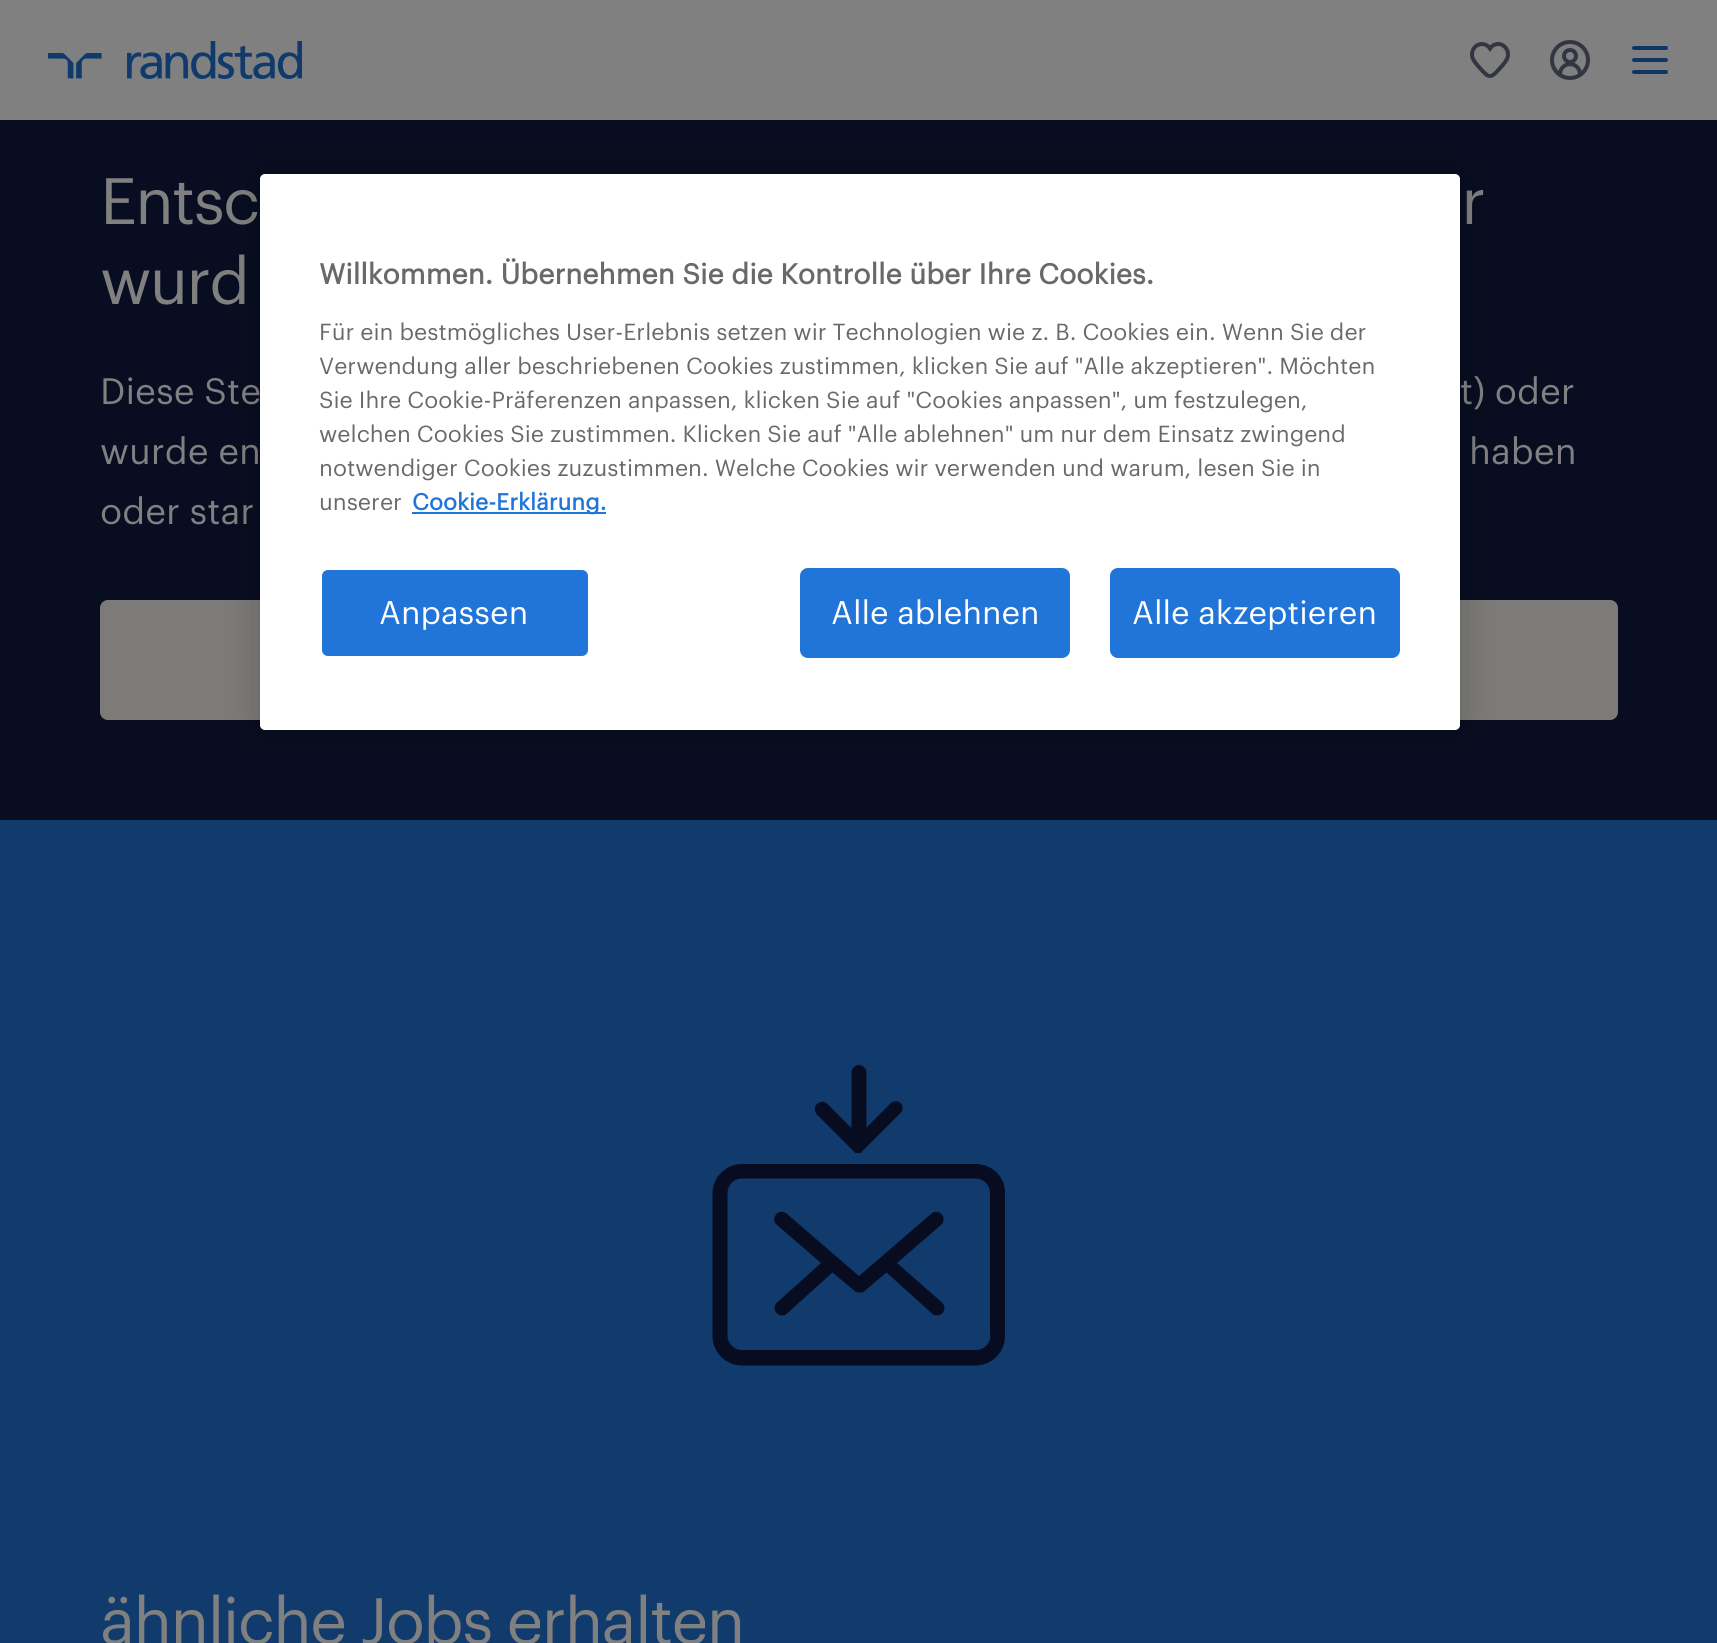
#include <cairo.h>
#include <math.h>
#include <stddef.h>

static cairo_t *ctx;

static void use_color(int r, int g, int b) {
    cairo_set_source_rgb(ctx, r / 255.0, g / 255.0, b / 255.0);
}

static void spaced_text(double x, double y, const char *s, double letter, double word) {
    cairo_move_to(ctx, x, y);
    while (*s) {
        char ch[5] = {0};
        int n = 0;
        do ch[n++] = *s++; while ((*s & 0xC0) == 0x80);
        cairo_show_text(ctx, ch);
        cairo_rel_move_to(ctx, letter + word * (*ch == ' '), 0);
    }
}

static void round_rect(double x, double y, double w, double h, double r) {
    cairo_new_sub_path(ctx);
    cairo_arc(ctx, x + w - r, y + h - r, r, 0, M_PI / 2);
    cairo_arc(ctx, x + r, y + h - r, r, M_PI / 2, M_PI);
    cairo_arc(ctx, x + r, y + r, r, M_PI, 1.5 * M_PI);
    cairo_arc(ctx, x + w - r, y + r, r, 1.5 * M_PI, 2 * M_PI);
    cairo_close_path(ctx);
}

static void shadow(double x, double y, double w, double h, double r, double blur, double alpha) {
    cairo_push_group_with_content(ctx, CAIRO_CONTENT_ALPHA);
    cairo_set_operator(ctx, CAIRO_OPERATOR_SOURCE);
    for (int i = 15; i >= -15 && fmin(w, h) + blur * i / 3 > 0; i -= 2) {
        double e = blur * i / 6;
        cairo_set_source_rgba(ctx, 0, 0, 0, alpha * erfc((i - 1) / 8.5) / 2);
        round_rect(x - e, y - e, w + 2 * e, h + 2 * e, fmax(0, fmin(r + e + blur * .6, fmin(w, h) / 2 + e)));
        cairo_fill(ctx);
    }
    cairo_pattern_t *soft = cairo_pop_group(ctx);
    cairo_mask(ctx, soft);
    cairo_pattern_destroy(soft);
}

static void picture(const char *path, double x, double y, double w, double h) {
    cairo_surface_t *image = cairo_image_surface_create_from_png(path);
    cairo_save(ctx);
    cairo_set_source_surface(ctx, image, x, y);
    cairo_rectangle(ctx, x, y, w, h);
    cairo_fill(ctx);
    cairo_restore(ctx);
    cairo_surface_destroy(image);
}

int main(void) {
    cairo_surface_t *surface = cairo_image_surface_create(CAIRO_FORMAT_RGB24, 1717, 1643);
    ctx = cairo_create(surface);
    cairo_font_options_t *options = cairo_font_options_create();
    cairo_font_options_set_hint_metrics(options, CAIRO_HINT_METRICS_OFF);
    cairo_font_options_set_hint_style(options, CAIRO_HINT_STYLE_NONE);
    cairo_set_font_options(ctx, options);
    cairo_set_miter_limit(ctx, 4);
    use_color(128, 128, 128);
    cairo_paint(ctx);
    picture("img1.png", 48, 41, 254, 38);
    picture("img2.png", 1470, 42, 40, 36);
    picture("img3.png", 1550, 40, 40, 40);
    picture("img4.png", 1632, 46, 36, 28);
    use_color(8, 13, 33);
    cairo_rectangle(ctx, 0, 120, 1717, 700);
    cairo_fill(ctx);
    cairo_select_font_face(ctx, "Graphik", CAIRO_FONT_SLANT_NORMAL, CAIRO_FONT_WEIGHT_NORMAL);
    cairo_set_font_size(ctx, 64);
    use_color(128, 128, 128);
    spaced_text(100, 224, "Entsc", -2, 0);
    spaced_text(1461, 224, "r", -2, 0);
    spaced_text(100, 304, "wurd", -2, 0);
    cairo_set_font_size(ctx, 36);
    cairo_move_to(ctx, 100, 404);
    cairo_show_text(ctx, "Diese Ste");
    cairo_move_to(ctx, 1460, 404);
    cairo_show_text(ctx, "t) oder");
    cairo_move_to(ctx, 100, 464);
    cairo_show_text(ctx, "wurde en");
    cairo_move_to(ctx, 1469, 464);
    cairo_show_text(ctx, "haben");
    cairo_move_to(ctx, 100, 524);
    cairo_show_text(ctx, "oder star");
    use_color(124, 123, 120);
    round_rect(102, 602, 1514, 116, 6);
    cairo_fill_preserve(ctx);
    cairo_set_line_width(ctx, 4);
    cairo_stroke(ctx);
    use_color(17, 59, 109);
    cairo_rectangle(ctx, 0, 820, 1717, 823);
    cairo_fill(ctx);
    picture("img5.png", 712, 1065, 293, 301);
    cairo_set_font_size(ctx, 64);
    use_color(128, 128, 128);
    spaced_text(100, 1644, "ähnliche Jobs erhalten", -2, 0);
    use_color(0, 0, 0);
    shadow(260, 174, 1200, 556, 5, 18, 0.2);
    use_color(255, 255, 255);
    round_rect(260, 174, 1200, 556, 5);
    cairo_fill(ctx);
    cairo_select_font_face(ctx, "Graphik", CAIRO_FONT_SLANT_NORMAL, CAIRO_FONT_WEIGHT_BOLD);
    cairo_set_font_size(ctx, 28);
    use_color(105, 105, 105);
    cairo_move_to(ctx, 319, 284);
    cairo_show_text(ctx, "Willkommen. Übernehmen Sie die Kontrolle über Ihre Cookies.");
    cairo_select_font_face(ctx, "Graphik", CAIRO_FONT_SLANT_NORMAL, CAIRO_FONT_WEIGHT_NORMAL);
    cairo_set_font_size(ctx, 22.75);
    cairo_move_to(ctx, 319, 340);
    cairo_show_text(ctx, "Für ein bestmögliches User-Erlebnis setzen wir Technologien wie z. B. Cookies ein. Wenn Sie der");
    cairo_move_to(ctx, 319, 374);
    cairo_show_text(ctx, "Verwendung aller beschriebenen Cookies zustimmen, klicken Sie auf \"Alle akzeptieren\". Möchten");
    cairo_move_to(ctx, 319, 408);
    cairo_show_text(ctx, "Sie Ihre Cookie-Präferenzen anpassen, klicken Sie auf \"Cookies anpassen\", um festzulegen,");
    cairo_move_to(ctx, 319, 442);
    cairo_show_text(ctx, "welchen Cookies Sie zustimmen. Klicken Sie auf \"Alle ablehnen\" um nur dem Einsatz zwingend");
    cairo_move_to(ctx, 319, 476);
    cairo_show_text(ctx, "notwendiger Cookies zuzustimmen. Welche Cookies wir verwenden und warum, lesen Sie in");
    cairo_move_to(ctx, 319, 510);
    cairo_show_text(ctx, "unserer");
    use_color(33, 117, 217);
    cairo_rectangle(ctx, 412, 512, 194, 2);
    cairo_fill(ctx);
    cairo_select_font_face(ctx, "Graphik", CAIRO_FONT_SLANT_NORMAL, CAIRO_FONT_WEIGHT_BOLD);
    cairo_move_to(ctx, 412, 510);
    cairo_show_text(ctx, "Cookie-Erklärung.");
    round_rect(321, 569, 268, 88, 7);
    cairo_fill_preserve(ctx);
    use_color(255, 255, 255);
    cairo_set_line_width(ctx, 2);
    cairo_stroke(ctx);
    cairo_select_font_face(ctx, "Graphik", CAIRO_FONT_SLANT_NORMAL, CAIRO_FONT_WEIGHT_NORMAL);
    cairo_set_font_size(ctx, 32);
    cairo_move_to(ctx, 379, 624);
    cairo_show_text(ctx, "Anpassen");
    use_color(33, 117, 217);
    round_rect(801, 569, 268, 88, 7);
    cairo_fill_preserve(ctx);
    cairo_stroke(ctx);
    use_color(255, 255, 255);
    cairo_move_to(ctx, 831, 624);
    cairo_show_text(ctx, "Alle ablehnen");
    use_color(33, 117, 217);
    round_rect(1111, 569, 288, 88, 7);
    cairo_fill_preserve(ctx);
    cairo_stroke(ctx);
    use_color(255, 255, 255);
    cairo_move_to(ctx, 1132, 624);
    cairo_show_text(ctx, "Alle akzeptieren");
    cairo_surface_write_to_png(surface, "result.png");
    cairo_font_options_destroy(options);
    cairo_destroy(ctx);
    cairo_surface_destroy(surface);
    return 0;
}
